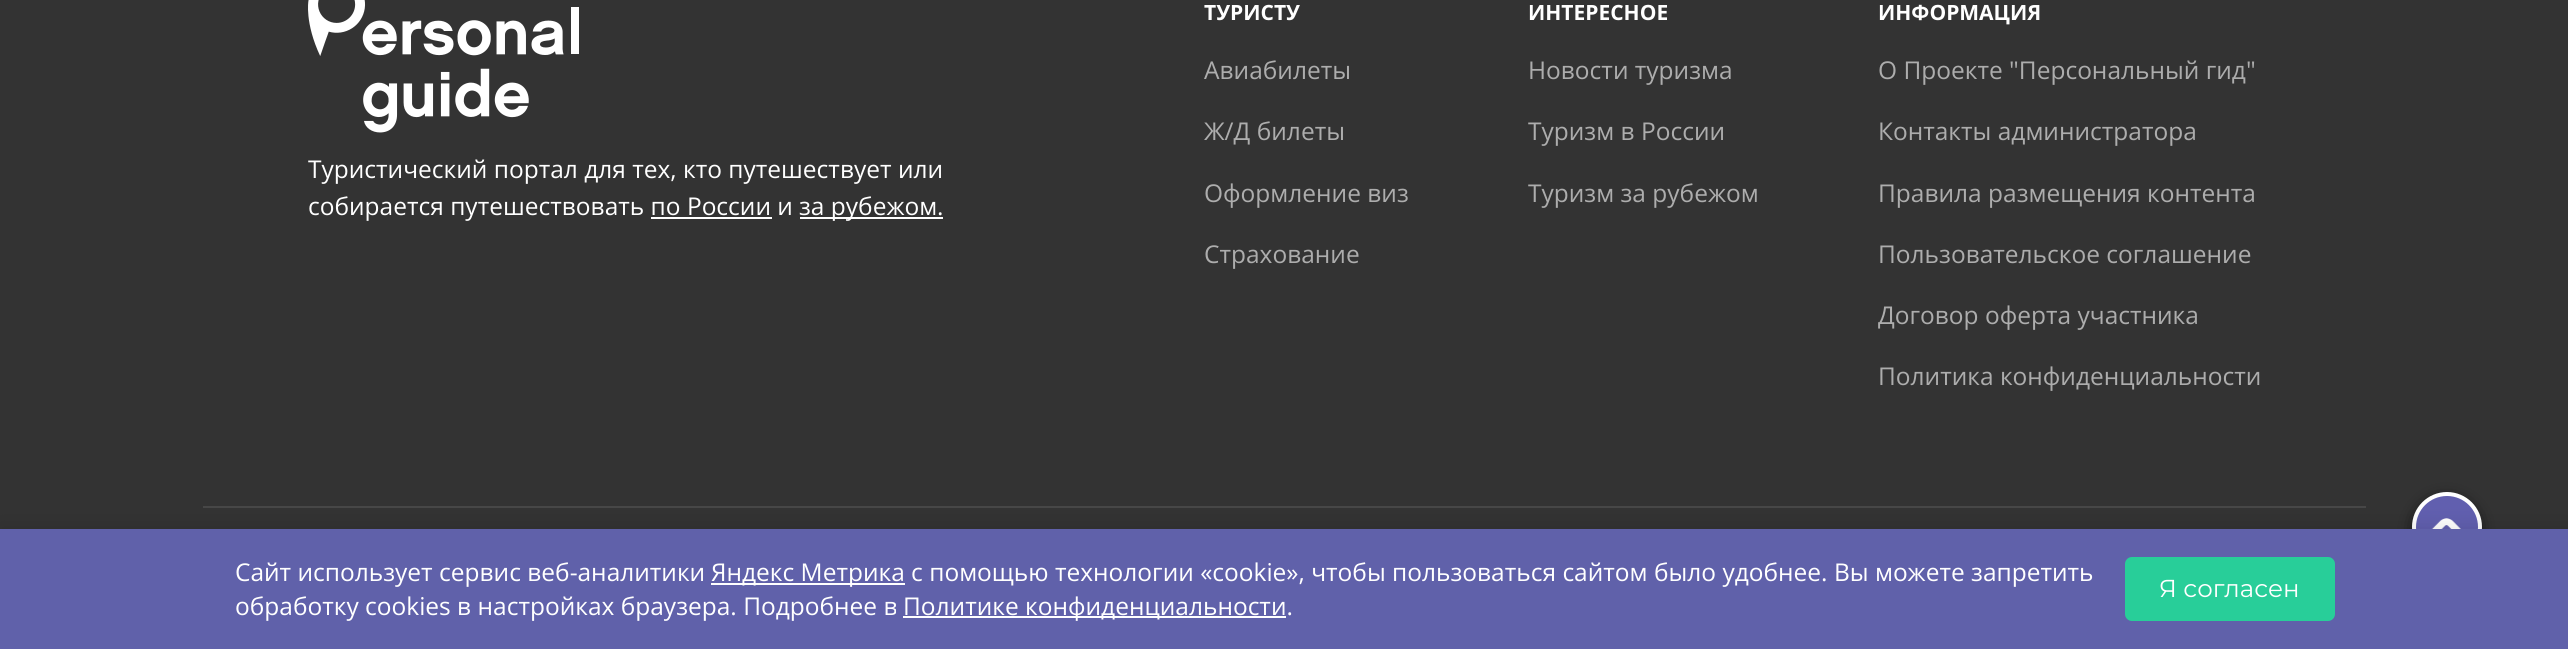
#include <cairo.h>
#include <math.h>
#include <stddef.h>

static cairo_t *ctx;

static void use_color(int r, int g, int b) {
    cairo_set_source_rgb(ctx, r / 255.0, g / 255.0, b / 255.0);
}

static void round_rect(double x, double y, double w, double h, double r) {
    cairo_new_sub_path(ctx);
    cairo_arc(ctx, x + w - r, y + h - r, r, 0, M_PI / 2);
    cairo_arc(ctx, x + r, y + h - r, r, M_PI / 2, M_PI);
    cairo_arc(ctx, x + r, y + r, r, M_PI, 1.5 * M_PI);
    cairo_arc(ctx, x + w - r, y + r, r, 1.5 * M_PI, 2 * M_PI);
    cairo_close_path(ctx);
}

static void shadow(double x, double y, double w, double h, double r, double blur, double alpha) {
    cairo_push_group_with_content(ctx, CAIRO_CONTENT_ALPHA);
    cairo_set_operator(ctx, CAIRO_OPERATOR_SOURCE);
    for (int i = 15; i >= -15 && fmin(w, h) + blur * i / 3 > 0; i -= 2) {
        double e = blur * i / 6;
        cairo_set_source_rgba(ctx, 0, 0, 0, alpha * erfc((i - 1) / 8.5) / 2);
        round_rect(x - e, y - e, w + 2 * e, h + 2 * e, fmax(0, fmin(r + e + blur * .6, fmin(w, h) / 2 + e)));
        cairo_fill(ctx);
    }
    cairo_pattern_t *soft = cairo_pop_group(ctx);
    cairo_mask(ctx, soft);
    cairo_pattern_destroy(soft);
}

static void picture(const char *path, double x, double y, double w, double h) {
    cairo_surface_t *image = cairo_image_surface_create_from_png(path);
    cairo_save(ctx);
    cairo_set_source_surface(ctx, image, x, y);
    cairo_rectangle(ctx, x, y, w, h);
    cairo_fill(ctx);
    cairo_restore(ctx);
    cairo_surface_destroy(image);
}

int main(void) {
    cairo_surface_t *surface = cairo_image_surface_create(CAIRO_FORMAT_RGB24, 2568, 649);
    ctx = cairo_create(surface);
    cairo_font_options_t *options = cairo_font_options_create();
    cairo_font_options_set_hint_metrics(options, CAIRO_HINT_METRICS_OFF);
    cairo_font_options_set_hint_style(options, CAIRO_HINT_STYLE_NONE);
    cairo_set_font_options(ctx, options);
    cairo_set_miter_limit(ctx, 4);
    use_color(51, 51, 51);
    cairo_paint(ctx);
    picture("img1.png", 308, 0, 271, 133);
    cairo_select_font_face(ctx, "Open Sans", CAIRO_FONT_SLANT_NORMAL, CAIRO_FONT_WEIGHT_NORMAL);
    cairo_set_font_size(ctx, 24.5);
    use_color(255, 255, 255);
    cairo_move_to(ctx, 308, 178);
    cairo_show_text(ctx, "Туристический портал для тех, кто путешествует или");
    cairo_move_to(ctx, 308, 215);
    cairo_show_text(ctx, "собирается путешествовать по России и");
    cairo_rectangle(ctx, 800, 217, 143, 2);
    cairo_fill(ctx);
    cairo_move_to(ctx, 799, 215);
    cairo_show_text(ctx, "за рубежом.");
    cairo_rectangle(ctx, 651, 217, 121, 2);
    cairo_fill(ctx);
    cairo_select_font_face(ctx, "Open Sans", CAIRO_FONT_SLANT_NORMAL, CAIRO_FONT_WEIGHT_BOLD);
    cairo_set_font_size(ctx, 21);
    cairo_move_to(ctx, 1204, 20);
    cairo_show_text(ctx, "ТУРИСТУ");
    cairo_select_font_face(ctx, "Open Sans", CAIRO_FONT_SLANT_NORMAL, CAIRO_FONT_WEIGHT_NORMAL);
    cairo_set_font_size(ctx, 24.5);
    use_color(173, 173, 173);
    cairo_move_to(ctx, 1204, 79);
    cairo_show_text(ctx, "Авиабилеты");
    cairo_move_to(ctx, 1204, 140);
    cairo_show_text(ctx, "Ж/Д билеты");
    cairo_move_to(ctx, 1204, 202);
    cairo_show_text(ctx, "Оформление виз");
    cairo_move_to(ctx, 1204, 263);
    cairo_show_text(ctx, "Страхование");
    cairo_select_font_face(ctx, "Open Sans", CAIRO_FONT_SLANT_NORMAL, CAIRO_FONT_WEIGHT_BOLD);
    cairo_set_font_size(ctx, 21);
    use_color(255, 255, 255);
    cairo_move_to(ctx, 1528, 20);
    cairo_show_text(ctx, "ИНТЕРЕСНОЕ");
    cairo_select_font_face(ctx, "Open Sans", CAIRO_FONT_SLANT_NORMAL, CAIRO_FONT_WEIGHT_NORMAL);
    cairo_set_font_size(ctx, 24.5);
    use_color(173, 173, 173);
    cairo_move_to(ctx, 1528, 79);
    cairo_show_text(ctx, "Новости туризма");
    cairo_move_to(ctx, 1528, 140);
    cairo_show_text(ctx, "Туризм в России");
    cairo_move_to(ctx, 1528, 202);
    cairo_show_text(ctx, "Туризм за рубежом");
    cairo_select_font_face(ctx, "Open Sans", CAIRO_FONT_SLANT_NORMAL, CAIRO_FONT_WEIGHT_BOLD);
    cairo_set_font_size(ctx, 21);
    use_color(255, 255, 255);
    cairo_move_to(ctx, 1878, 20);
    cairo_show_text(ctx, "ИНФОРМАЦИЯ");
    cairo_select_font_face(ctx, "Open Sans", CAIRO_FONT_SLANT_NORMAL, CAIRO_FONT_WEIGHT_NORMAL);
    cairo_set_font_size(ctx, 24.5);
    use_color(173, 173, 173);
    cairo_move_to(ctx, 1878, 79);
    cairo_show_text(ctx, "О Проекте \"Персональный гид\"");
    cairo_move_to(ctx, 1878, 140);
    cairo_show_text(ctx, "Контакты администратора");
    cairo_move_to(ctx, 1878, 202);
    cairo_show_text(ctx, "Правила размещения контента");
    cairo_move_to(ctx, 1878, 263);
    cairo_show_text(ctx, "Пользовательское соглашение");
    cairo_move_to(ctx, 1878, 324);
    cairo_show_text(ctx, "Договор оферта участника");
    cairo_move_to(ctx, 1878, 385);
    cairo_show_text(ctx, "Политика конфиденциальности");
    use_color(71, 71, 71);
    cairo_rectangle(ctx, 203, 506, 2163, 2);
    cairo_fill(ctx);
    use_color(0, 0, 0);
    shadow(2417, 502, 59, 60, 29.5, 9, 1);
    use_color(97, 95, 175);
    cairo_arc(ctx, 2447, 527, 33, 0, 2 * M_PI);
    cairo_fill_preserve(ctx);
    use_color(255, 255, 255);
    cairo_set_line_width(ctx, 4);
    cairo_stroke(ctx);
    picture("img2.png", 2431, 518, 30, 11);
    use_color(0, 0, 0);
    shadow(0, 525, 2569, 121, 0, 9, 0.1);
    use_color(96, 97, 170);
    cairo_rectangle(ctx, 0, 529, 2568, 120);
    cairo_fill(ctx);
    use_color(255, 255, 255);
    cairo_move_to(ctx, 235, 581);
    cairo_show_text(ctx, "Сайт использует сервис веб-аналитики");
    cairo_rectangle(ctx, 711, 583, 194, 2);
    cairo_fill(ctx);
    cairo_move_to(ctx, 711, 581);
    cairo_show_text(ctx, "Яндекс Метрика с помощью технологии «cookie», чтобы пользоваться сайтом было удобнее. Вы можете запретить");
    cairo_move_to(ctx, 235, 615);
    cairo_show_text(ctx, "обработку cookies в настройках браузера. Подробнее в");
    cairo_rectangle(ctx, 903, 616, 383, 2);
    cairo_fill(ctx);
    cairo_move_to(ctx, 903, 615);
    cairo_show_text(ctx, "Политике конфиденциальности.");
    use_color(40, 206, 153);
    round_rect(2125, 557, 210, 64, 7);
    cairo_fill(ctx);
    cairo_select_font_face(ctx, "Montserrat", CAIRO_FONT_SLANT_NORMAL, CAIRO_FONT_WEIGHT_NORMAL);
    use_color(255, 255, 255);
    cairo_move_to(ctx, 2159, 597);
    cairo_show_text(ctx, "Я согласен");
    cairo_surface_write_to_png(surface, "result.png");
    cairo_font_options_destroy(options);
    cairo_destroy(ctx);
    cairo_surface_destroy(surface);
    return 0;
}
